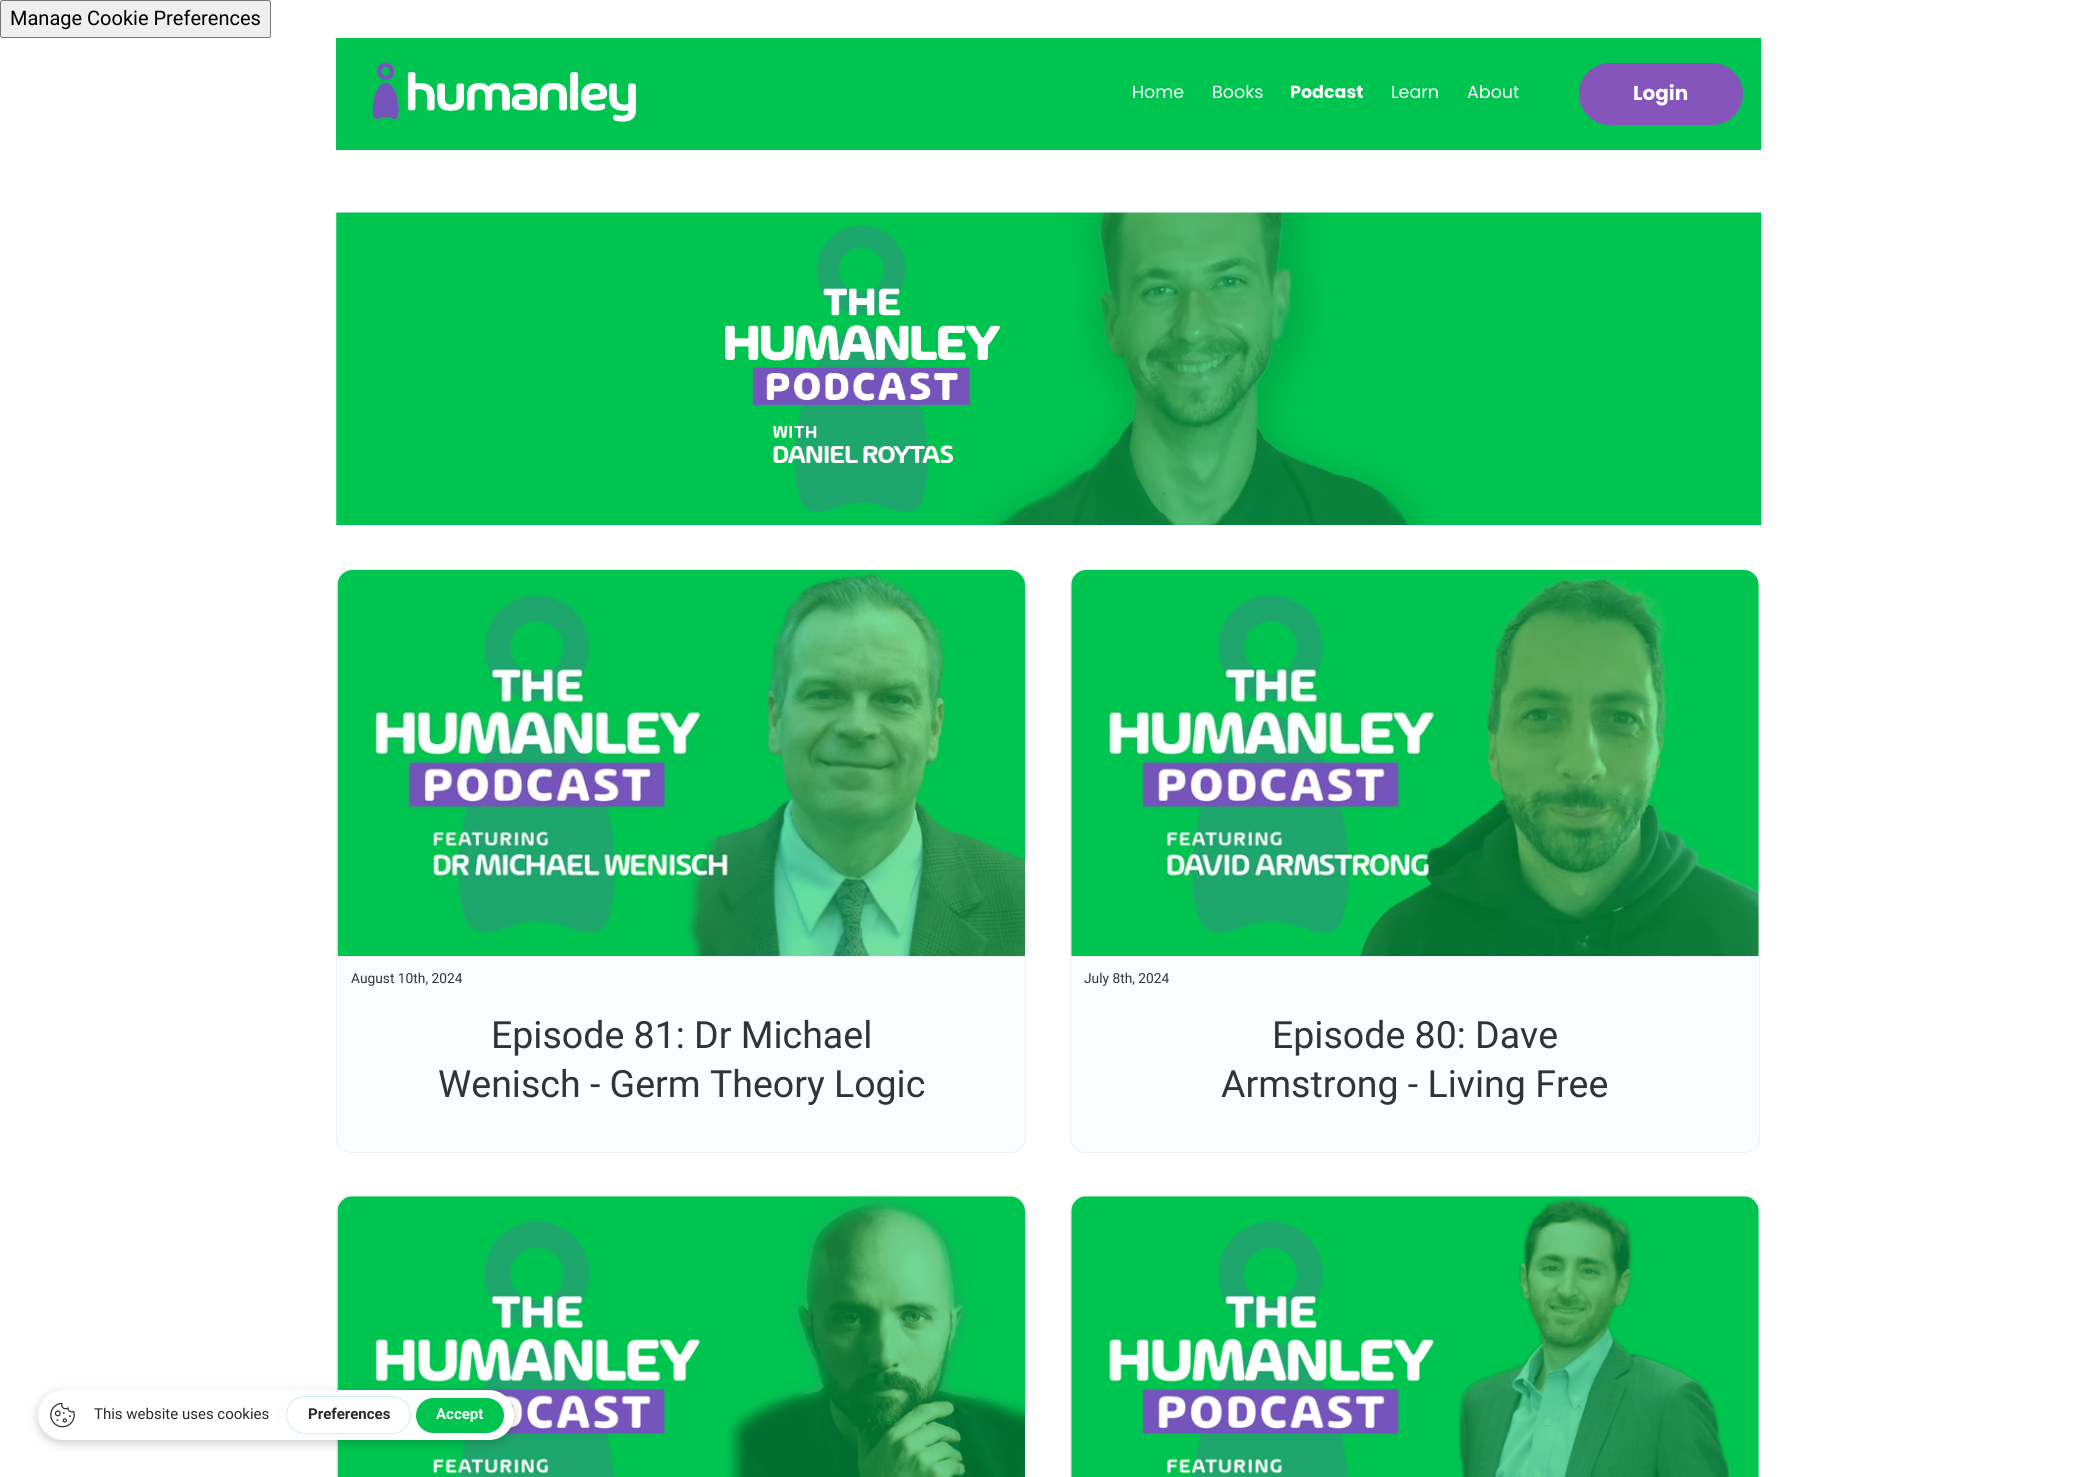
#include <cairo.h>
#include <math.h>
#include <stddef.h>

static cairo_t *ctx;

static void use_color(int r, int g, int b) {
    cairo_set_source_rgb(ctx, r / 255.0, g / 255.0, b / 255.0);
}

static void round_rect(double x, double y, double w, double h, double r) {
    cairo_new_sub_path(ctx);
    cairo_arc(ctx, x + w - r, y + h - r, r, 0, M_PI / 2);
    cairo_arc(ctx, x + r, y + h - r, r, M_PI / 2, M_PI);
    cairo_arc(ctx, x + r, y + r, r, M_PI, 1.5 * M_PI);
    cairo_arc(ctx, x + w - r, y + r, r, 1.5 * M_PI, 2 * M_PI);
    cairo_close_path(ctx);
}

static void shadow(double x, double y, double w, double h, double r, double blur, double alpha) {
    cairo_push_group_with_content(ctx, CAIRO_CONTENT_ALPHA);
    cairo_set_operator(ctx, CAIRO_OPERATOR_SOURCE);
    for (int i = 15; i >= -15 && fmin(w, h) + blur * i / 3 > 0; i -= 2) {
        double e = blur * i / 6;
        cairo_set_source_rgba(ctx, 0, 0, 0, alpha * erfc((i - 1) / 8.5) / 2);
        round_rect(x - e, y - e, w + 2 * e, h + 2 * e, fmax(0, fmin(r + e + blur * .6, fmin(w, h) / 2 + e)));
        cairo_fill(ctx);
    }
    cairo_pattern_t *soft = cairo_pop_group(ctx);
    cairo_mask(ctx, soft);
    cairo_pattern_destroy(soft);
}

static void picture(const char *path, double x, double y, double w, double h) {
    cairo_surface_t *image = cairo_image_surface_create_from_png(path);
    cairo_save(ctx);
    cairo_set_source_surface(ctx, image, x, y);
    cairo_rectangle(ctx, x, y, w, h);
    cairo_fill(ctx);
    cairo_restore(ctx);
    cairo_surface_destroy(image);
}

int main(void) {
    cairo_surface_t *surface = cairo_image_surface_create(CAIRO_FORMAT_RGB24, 2096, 1477);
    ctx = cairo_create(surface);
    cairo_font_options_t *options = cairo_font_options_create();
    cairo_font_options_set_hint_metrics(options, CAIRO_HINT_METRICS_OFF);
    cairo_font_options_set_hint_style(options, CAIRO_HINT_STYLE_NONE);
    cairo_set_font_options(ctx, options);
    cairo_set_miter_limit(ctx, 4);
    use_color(255, 255, 255);
    cairo_paint(ctx);
    use_color(239, 239, 239);
    round_rect(0.5, 0.5, 270, 37, 2);
    cairo_fill_preserve(ctx);
    use_color(118, 118, 118);
    cairo_set_line_width(ctx, 1);
    cairo_stroke(ctx);
    cairo_select_font_face(ctx, "Roboto", CAIRO_FONT_SLANT_NORMAL, CAIRO_FONT_WEIGHT_NORMAL);
    cairo_set_font_size(ctx, 20);
    use_color(0, 0, 0);
    cairo_move_to(ctx, 10, 25);
    cairo_show_text(ctx, "Manage Cookie Preferences");
    use_color(0, 196, 80);
    cairo_rectangle(ctx, 336, 38, 1425, 112);
    cairo_fill(ctx);
    picture("img1.png", 372, 62, 265, 60);
    cairo_select_font_face(ctx, "Poppins", CAIRO_FONT_SLANT_NORMAL, CAIRO_FONT_WEIGHT_NORMAL);
    cairo_set_font_size(ctx, 17.5);
    use_color(255, 255, 255);
    cairo_move_to(ctx, 1132, 98);
    cairo_show_text(ctx, "Home");
    cairo_move_to(ctx, 1212, 98);
    cairo_show_text(ctx, "Books");
    cairo_select_font_face(ctx, "Poppins", CAIRO_FONT_SLANT_NORMAL, CAIRO_FONT_WEIGHT_BOLD);
    cairo_move_to(ctx, 1290, 98);
    cairo_show_text(ctx, "Podcast");
    cairo_select_font_face(ctx, "Poppins", CAIRO_FONT_SLANT_NORMAL, CAIRO_FONT_WEIGHT_NORMAL);
    cairo_move_to(ctx, 1391, 98);
    cairo_show_text(ctx, "Learn");
    cairo_move_to(ctx, 1467, 98);
    cairo_show_text(ctx, "About");
    use_color(133, 85, 188);
    round_rect(1581, 65, 160, 58, 29);
    cairo_fill_preserve(ctx);
    cairo_set_line_width(ctx, 4);
    cairo_stroke(ctx);
    cairo_select_font_face(ctx, "Poppins", CAIRO_FONT_SLANT_NORMAL, CAIRO_FONT_WEIGHT_BOLD);
    cairo_set_font_size(ctx, 20);
    use_color(255, 255, 255);
    cairo_move_to(ctx, 1633, 100);
    cairo_show_text(ctx, "Login");
    picture("img2.png", 336, 212, 1426, 313);
    use_color(250, 253, 255);
    round_rect(336.5, 569.5, 689, 583, 14.5);
    cairo_fill_preserve(ctx);
    use_color(238, 241, 244);
    cairo_set_line_width(ctx, 1);
    cairo_stroke(ctx);
    picture("img3.png", 337, 570, 688, 387);
    cairo_select_font_face(ctx, "Roboto", CAIRO_FONT_SLANT_NORMAL, CAIRO_FONT_WEIGHT_NORMAL);
    cairo_set_font_size(ctx, 13.75);
    use_color(51, 51, 51);
    cairo_move_to(ctx, 351, 983);
    cairo_show_text(ctx, "August 10th, 2024");
    cairo_set_font_size(ctx, 37.5);
    cairo_move_to(ctx, 491, 1048);
    cairo_show_text(ctx, "Episode 81: Dr Michael");
    cairo_move_to(ctx, 438, 1097);
    cairo_show_text(ctx, "Wenisch - Germ Theory Logic");
    use_color(250, 253, 255);
    round_rect(1070.5, 569.5, 689, 583, 14.5);
    cairo_fill_preserve(ctx);
    use_color(238, 241, 244);
    cairo_stroke(ctx);
    picture("img4.png", 1071, 570, 688, 387);
    cairo_set_font_size(ctx, 13.75);
    use_color(51, 51, 51);
    cairo_move_to(ctx, 1084, 983);
    cairo_show_text(ctx, "July 8th, 2024");
    cairo_set_font_size(ctx, 37.5);
    cairo_move_to(ctx, 1272, 1048);
    cairo_show_text(ctx, "Episode 80: Dave");
    cairo_move_to(ctx, 1221, 1097);
    cairo_show_text(ctx, "Armstrong - Living Free");
    use_color(250, 253, 255);
    round_rect(336.5, 1195.5, 689, 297, 14.5);
    cairo_fill_preserve(ctx);
    use_color(238, 241, 244);
    cairo_stroke(ctx);
    picture("img5.png", 337, 1196, 688, 281);
    use_color(250, 253, 255);
    round_rect(1070.5, 1195.5, 689, 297, 14.5);
    cairo_fill_preserve(ctx);
    use_color(238, 241, 244);
    cairo_stroke(ctx);
    picture("img6.png", 1071, 1196, 688, 281);
    use_color(0, 0, 0);
    shadow(38, 1393, 476, 50, 25, 5, 0.2);
    use_color(255, 255, 255);
    round_rect(38, 1390, 476, 50, 25);
    cairo_fill(ctx);
    picture("img7.png", 50, 1403, 25, 25);
    cairo_set_font_size(ctx, 15);
    use_color(42, 42, 42);
    cairo_move_to(ctx, 94, 1419);
    cairo_show_text(ctx, "This website uses cookies");
    round_rect(286.5, 1396.5, 124, 37, 18.5);
    use_color(204, 243, 220);
    cairo_stroke(ctx);
    cairo_select_font_face(ctx, "Roboto", CAIRO_FONT_SLANT_NORMAL, CAIRO_FONT_WEIGHT_BOLD);
    use_color(42, 42, 42);
    cairo_move_to(ctx, 308, 1419);
    cairo_show_text(ctx, "Preferences");
    use_color(0, 196, 80);
    round_rect(416, 1398, 88, 35, 17.5);
    cairo_fill(ctx);
    use_color(255, 255, 255);
    cairo_move_to(ctx, 436, 1419);
    cairo_show_text(ctx, "Accept");
    cairo_surface_write_to_png(surface, "result.png");
    cairo_font_options_destroy(options);
    cairo_destroy(ctx);
    cairo_surface_destroy(surface);
    return 0;
}
